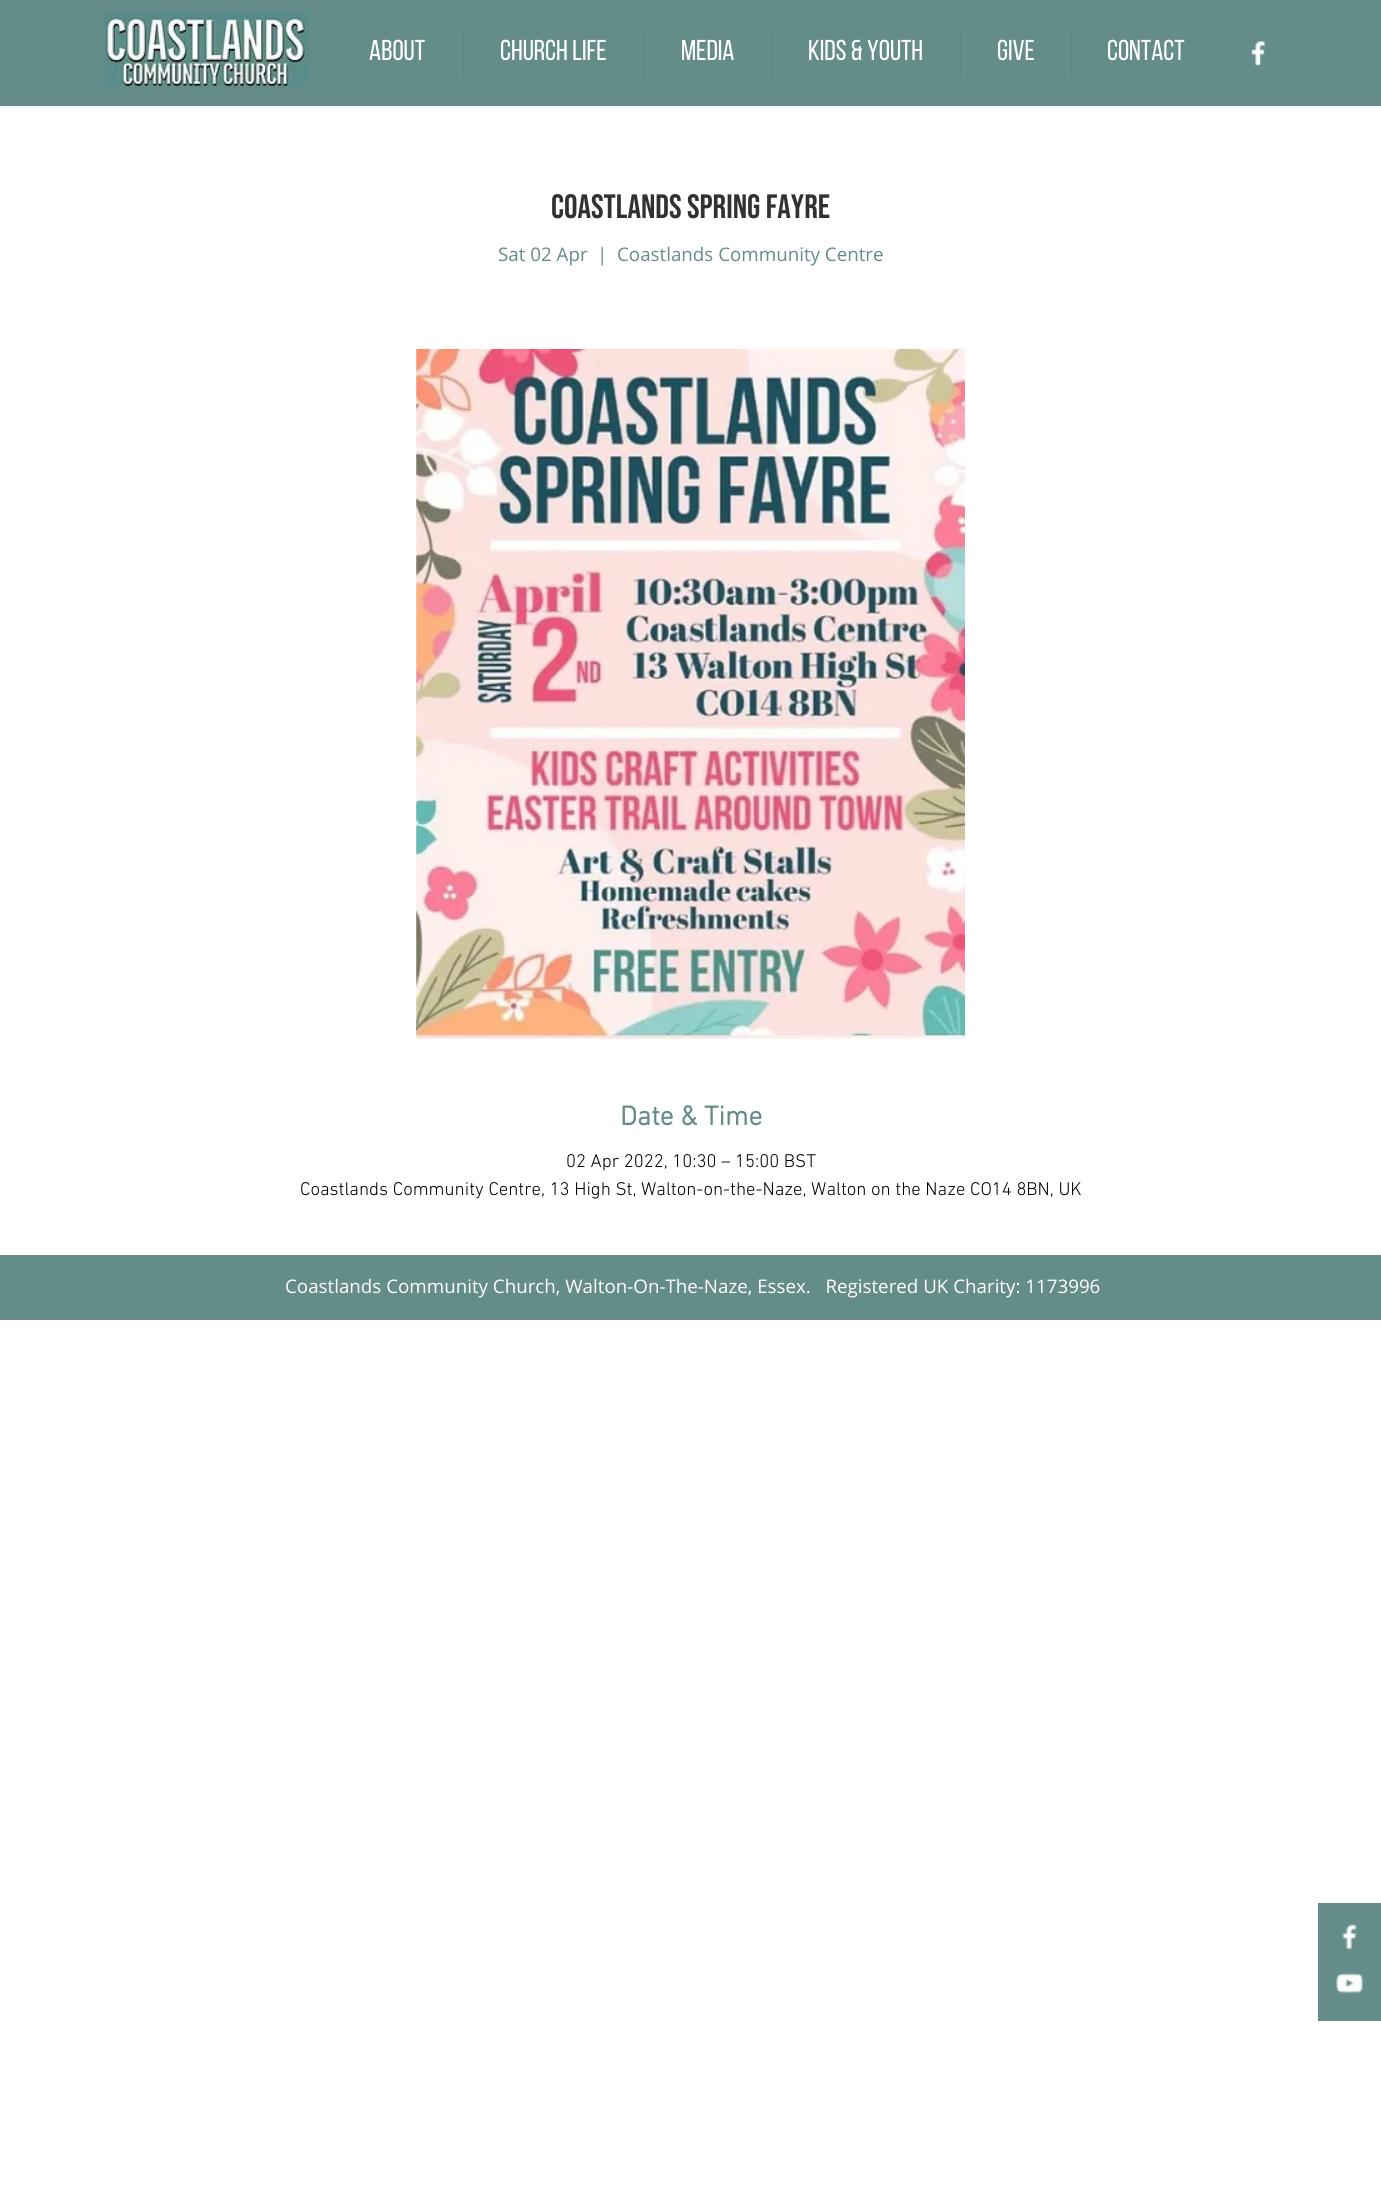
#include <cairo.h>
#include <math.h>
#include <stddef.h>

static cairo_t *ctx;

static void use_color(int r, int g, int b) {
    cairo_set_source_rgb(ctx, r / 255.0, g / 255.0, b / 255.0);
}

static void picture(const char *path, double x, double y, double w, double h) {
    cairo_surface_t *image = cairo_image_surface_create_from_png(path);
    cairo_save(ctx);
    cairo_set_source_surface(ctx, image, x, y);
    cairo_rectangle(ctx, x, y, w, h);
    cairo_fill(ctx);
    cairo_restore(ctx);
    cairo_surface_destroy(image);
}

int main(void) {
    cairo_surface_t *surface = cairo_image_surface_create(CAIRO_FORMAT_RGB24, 1381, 2186);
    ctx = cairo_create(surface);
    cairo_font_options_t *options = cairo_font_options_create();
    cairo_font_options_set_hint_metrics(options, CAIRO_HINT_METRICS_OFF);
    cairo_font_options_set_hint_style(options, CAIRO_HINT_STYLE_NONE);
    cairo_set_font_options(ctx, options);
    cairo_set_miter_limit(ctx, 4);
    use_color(255, 255, 255);
    cairo_paint(ctx);
    use_color(100, 140, 136);
    cairo_rectangle(ctx, 0, 0, 1381, 106);
    cairo_fill(ctx);
    picture("img1.png", 102, 11, 207, 76);
    cairo_select_font_face(ctx, "Bebas Neue", CAIRO_FONT_SLANT_NORMAL, CAIRO_FONT_WEIGHT_NORMAL);
    cairo_set_font_size(ctx, 28.75);
    use_color(255, 255, 255);
    cairo_move_to(ctx, 369, 60);
    cairo_show_text(ctx, "About");
    use_color(92, 132, 128);
    cairo_rectangle(ctx, 463, 29, 1, 49);
    cairo_fill(ctx);
    use_color(255, 255, 255);
    cairo_move_to(ctx, 500, 60);
    cairo_show_text(ctx, "Church Life");
    use_color(92, 132, 128);
    cairo_rectangle(ctx, 644, 29, 1, 49);
    cairo_fill(ctx);
    use_color(255, 255, 255);
    cairo_move_to(ctx, 681, 60);
    cairo_show_text(ctx, "Media");
    use_color(92, 132, 128);
    cairo_rectangle(ctx, 771, 29, 1, 49);
    cairo_fill(ctx);
    use_color(255, 255, 255);
    cairo_move_to(ctx, 808, 60);
    cairo_show_text(ctx, "Kids & Youth");
    use_color(92, 132, 128);
    cairo_rectangle(ctx, 960, 29, 1, 49);
    cairo_fill(ctx);
    use_color(255, 255, 255);
    cairo_move_to(ctx, 997, 60);
    cairo_show_text(ctx, "Give");
    use_color(92, 132, 128);
    cairo_rectangle(ctx, 1071, 29, 1, 49);
    cairo_fill(ctx);
    use_color(255, 255, 255);
    cairo_move_to(ctx, 1107, 60);
    cairo_show_text(ctx, "Contact");
    picture("img2.png", 1251, 41, 15, 25);
    cairo_select_font_face(ctx, "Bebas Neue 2", CAIRO_FONT_SLANT_NORMAL, CAIRO_FONT_WEIGHT_NORMAL);
    cairo_set_font_size(ctx, 33.75);
    use_color(51, 49, 48);
    cairo_move_to(ctx, 551, 218);
    cairo_show_text(ctx, "Coastlands Spring Fayre");
    cairo_select_font_face(ctx, "Open Sans", CAIRO_FONT_SLANT_NORMAL, CAIRO_FONT_WEIGHT_NORMAL);
    cairo_set_font_size(ctx, 18.75);
    use_color(100, 140, 136);
    cairo_move_to(ctx, 498, 261);
    cairo_show_text(ctx, "Sat 02 Apr");
    cairo_move_to(ctx, 597, 261);
    cairo_show_text(ctx, "|");
    cairo_move_to(ctx, 617, 261);
    cairo_show_text(ctx, "Coastlands Community Centre");
    picture("img3.png", 416, 348, 549, 691);
    cairo_select_font_face(ctx, "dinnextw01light", CAIRO_FONT_SLANT_NORMAL, CAIRO_FONT_WEIGHT_BOLD);
    cairo_set_font_size(ctx, 27.5);
    cairo_move_to(ctx, 620, 1125);
    cairo_show_text(ctx, "Date & Time");
    cairo_select_font_face(ctx, "dinnextw01light Light", CAIRO_FONT_SLANT_NORMAL, CAIRO_FONT_WEIGHT_NORMAL);
    cairo_set_font_size(ctx, 18.75);
    use_color(0, 0, 0);
    cairo_move_to(ctx, 566, 1167);
    cairo_show_text(ctx, "02 Apr 2022, 10:30 – 15:00 BST");
    cairo_move_to(ctx, 300, 1195);
    cairo_show_text(ctx, "Coastlands Community Centre, 13 High St, Walton-on-the-Naze, Walton on the Naze CO14 8BN, UK");
    use_color(100, 140, 136);
    cairo_rectangle(ctx, 0, 1255, 1381, 65);
    cairo_fill(ctx);
    cairo_select_font_face(ctx, "Open Sans", CAIRO_FONT_SLANT_NORMAL, CAIRO_FONT_WEIGHT_NORMAL);
    use_color(255, 255, 255);
    cairo_move_to(ctx, 285, 1293);
    cairo_show_text(ctx, "Coastlands Community Church, Walton-On-The-Naze, Essex.   Registered UK Charity: 1173996");
    use_color(100, 140, 136);
    cairo_rectangle(ctx, 1318, 1903, 63, 118);
    cairo_fill(ctx);
    picture("img4.png", 1342, 1924, 15, 26);
    picture("img5.png", 1335, 1973, 28, 21);
    cairo_surface_write_to_png(surface, "result.png");
    cairo_font_options_destroy(options);
    cairo_destroy(ctx);
    cairo_surface_destroy(surface);
    return 0;
}
